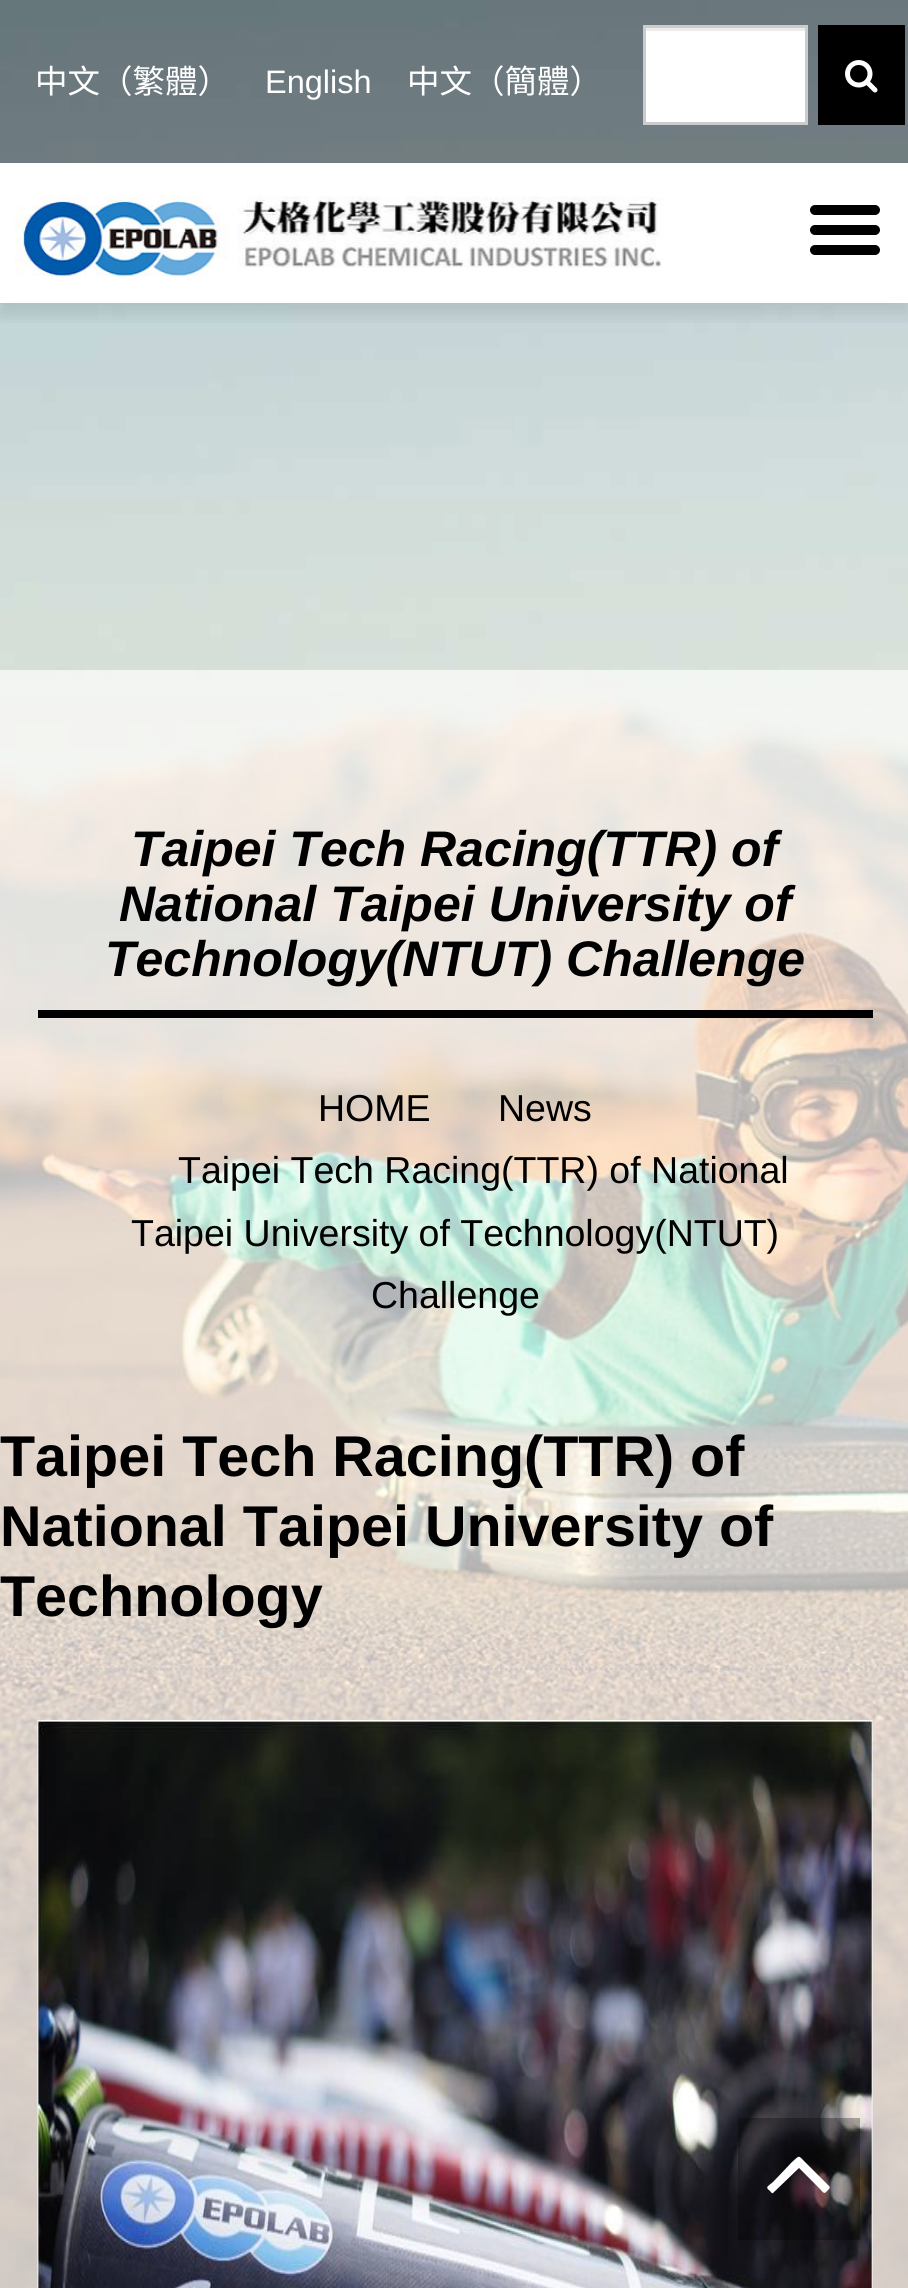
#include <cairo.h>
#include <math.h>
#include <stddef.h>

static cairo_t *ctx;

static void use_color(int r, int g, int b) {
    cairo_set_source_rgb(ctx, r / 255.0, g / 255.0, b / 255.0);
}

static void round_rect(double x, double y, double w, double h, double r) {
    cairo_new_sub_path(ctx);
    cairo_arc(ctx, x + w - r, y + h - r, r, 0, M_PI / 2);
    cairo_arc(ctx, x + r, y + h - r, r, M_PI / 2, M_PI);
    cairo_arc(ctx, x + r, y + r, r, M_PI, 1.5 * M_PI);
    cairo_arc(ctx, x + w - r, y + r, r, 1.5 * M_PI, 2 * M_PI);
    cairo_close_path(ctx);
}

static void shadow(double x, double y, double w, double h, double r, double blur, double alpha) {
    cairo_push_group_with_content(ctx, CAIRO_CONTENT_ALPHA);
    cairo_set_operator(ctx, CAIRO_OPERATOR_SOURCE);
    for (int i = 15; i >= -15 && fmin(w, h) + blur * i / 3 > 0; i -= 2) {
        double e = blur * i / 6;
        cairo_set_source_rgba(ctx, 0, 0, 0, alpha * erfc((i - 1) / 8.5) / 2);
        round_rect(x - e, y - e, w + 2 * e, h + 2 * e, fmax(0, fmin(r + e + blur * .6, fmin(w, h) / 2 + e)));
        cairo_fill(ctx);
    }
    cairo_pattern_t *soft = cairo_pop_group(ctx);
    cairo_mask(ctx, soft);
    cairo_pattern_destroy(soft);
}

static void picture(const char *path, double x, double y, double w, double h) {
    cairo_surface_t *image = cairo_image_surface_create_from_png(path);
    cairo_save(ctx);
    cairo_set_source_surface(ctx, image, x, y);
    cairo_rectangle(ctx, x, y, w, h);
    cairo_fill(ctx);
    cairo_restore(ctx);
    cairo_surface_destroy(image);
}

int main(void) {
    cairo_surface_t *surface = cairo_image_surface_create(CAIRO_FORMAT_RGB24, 908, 2288);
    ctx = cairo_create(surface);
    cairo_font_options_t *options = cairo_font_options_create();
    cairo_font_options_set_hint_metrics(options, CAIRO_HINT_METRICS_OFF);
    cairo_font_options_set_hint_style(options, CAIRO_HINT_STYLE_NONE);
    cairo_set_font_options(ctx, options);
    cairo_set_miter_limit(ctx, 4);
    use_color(255, 255, 255);
    cairo_paint(ctx);
    picture("img1.png", 0, 0, 908, 2288);
    cairo_save(ctx);
    cairo_rectangle(ctx, 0, 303, 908, 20);
    cairo_clip(ctx);
    use_color(0, 0, 0);
    shadow(0, 13, 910, 302, 0, 9, 0.1);
    cairo_restore(ctx);
    cairo_set_source_rgba(ctx, 0, 0, 0, 0.4);
    cairo_rectangle(ctx, 0, 0, 908, 163);
    cairo_fill(ctx);
    cairo_select_font_face(ctx, "Noto Sans CJK TC", CAIRO_FONT_SLANT_NORMAL, CAIRO_FONT_WEIGHT_NORMAL);
    cairo_set_font_size(ctx, 32.5);
    use_color(255, 255, 255);
    cairo_move_to(ctx, 35, 93);
    cairo_show_text(ctx, "中文（繁體）");
    cairo_select_font_face(ctx, "Liberation Sans", CAIRO_FONT_SLANT_NORMAL, CAIRO_FONT_WEIGHT_NORMAL);
    cairo_move_to(ctx, 265, 93);
    cairo_show_text(ctx, "English");
    cairo_select_font_face(ctx, "Noto Sans CJK TC", CAIRO_FONT_SLANT_NORMAL, CAIRO_FONT_WEIGHT_NORMAL);
    cairo_move_to(ctx, 407, 93);
    cairo_show_text(ctx, "中文（簡體）");
    cairo_rectangle(ctx, 646, 31, 159, 91);
    cairo_fill(ctx);
    use_color(236, 236, 236);
    cairo_rectangle(ctx, 645, 28, 160, 3);
    cairo_fill(ctx);
    cairo_rectangle(ctx, 644.5, 26.5, 162, 97);
    use_color(204, 204, 204);
    cairo_set_line_width(ctx, 3);
    cairo_stroke(ctx);
    use_color(0, 0, 0);
    cairo_rectangle(ctx, 818, 25, 87, 100);
    cairo_fill(ctx);
    picture("img2.png", 845, 60, 33, 33);
    use_color(255, 255, 255);
    cairo_rectangle(ctx, 0, 163, 908, 140);
    cairo_fill(ctx);
    picture("img3.png", 15, 196, 647, 81);
    use_color(0, 0, 0);
    round_rect(810, 225, 70, 10, 5);
    cairo_fill(ctx);
    round_rect(810, 205, 70, 10, 5);
    cairo_fill(ctx);
    round_rect(810, 245, 70, 10, 5);
    cairo_fill(ctx);
    cairo_set_source_rgba(ctx, 1, 1, 1, 0.67);
    cairo_rectangle(ctx, 0, 670, 908, 1618);
    cairo_fill(ctx);
    use_color(0, 0, 0);
    cairo_rectangle(ctx, 38, 1010, 835, 8);
    cairo_fill(ctx);
    cairo_select_font_face(ctx, "Liberation Sans", CAIRO_FONT_SLANT_ITALIC, CAIRO_FONT_WEIGHT_BOLD);
    cairo_set_font_size(ctx, 50);
    cairo_move_to(ctx, 131, 866);
    cairo_show_text(ctx, "Taipei Tech Racing(TTR) of");
    cairo_move_to(ctx, 119, 921);
    cairo_show_text(ctx, "National Taipei University of");
    cairo_move_to(ctx, 105, 976);
    cairo_show_text(ctx, "Technology(NTUT) Challenge");
    cairo_select_font_face(ctx, "Liberation Sans", CAIRO_FONT_SLANT_NORMAL, CAIRO_FONT_WEIGHT_NORMAL);
    cairo_set_font_size(ctx, 37.5);
    cairo_move_to(ctx, 318, 1121);
    cairo_show_text(ctx, "HOME");
    cairo_move_to(ctx, 498, 1121);
    cairo_show_text(ctx, "News");
    cairo_move_to(ctx, 178, 1183);
    cairo_show_text(ctx, "Taipei Tech Racing(TTR) of National");
    cairo_move_to(ctx, 131, 1246);
    cairo_show_text(ctx, "Taipei University of Technology(NTUT)");
    cairo_move_to(ctx, 371, 1308);
    cairo_show_text(ctx, "Challenge");
    cairo_new_path(ctx);
    cairo_move_to(ctx, 0, 1669);
    cairo_line_to(ctx, 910, 1669);
    use_color(204, 204, 204);
    cairo_set_line_width(ctx, 2.5);
    cairo_set_dash(ctx, (double[]){2.5, 2.5}, 2, 0);
    cairo_stroke(ctx);
    cairo_select_font_face(ctx, "Liberation Sans", CAIRO_FONT_SLANT_NORMAL, CAIRO_FONT_WEIGHT_BOLD);
    cairo_set_font_size(ctx, 57.5);
    use_color(0, 0, 0);
    cairo_move_to(ctx, 0, 1476);
    cairo_show_text(ctx, "Taipei Tech Racing(TTR) of");
    cairo_move_to(ctx, 0, 1546);
    cairo_show_text(ctx, "National Taipei University of");
    cairo_move_to(ctx, 0, 1616);
    cairo_show_text(ctx, "Technology");
    picture("img4.png", 37, 1720, 836, 568);
    cairo_set_source_rgba(ctx, 0, 0, 0, 0.3);
    cairo_rectangle(ctx, 738, 2118, 122, 122);
    cairo_fill(ctx);
    use_color(255, 255, 255);
    cairo_new_path(ctx);
    cairo_move_to(ctx, 829, 2186);
    cairo_curve_to(ctx, 831, 2188, 828, 2190, 827, 2191);
    cairo_curve_to(ctx, 824, 2195, 823, 2192, 819, 2188);
    cairo_line_to(ctx, 799, 2168);
    cairo_line_to(ctx, 773, 2193);
    cairo_curve_to(ctx, 772, 2194, 771, 2192, 770, 2191);
    cairo_curve_to(ctx, 765, 2187, 767, 2187, 773, 2182);
    cairo_line_to(ctx, 792, 2162);
    cairo_curve_to(ctx, 800, 2155, 798, 2155, 805, 2162);
    cairo_close_path(ctx);
    cairo_fill(ctx);
    cairo_surface_write_to_png(surface, "result.png");
    cairo_font_options_destroy(options);
    cairo_destroy(ctx);
    cairo_surface_destroy(surface);
    return 0;
}
